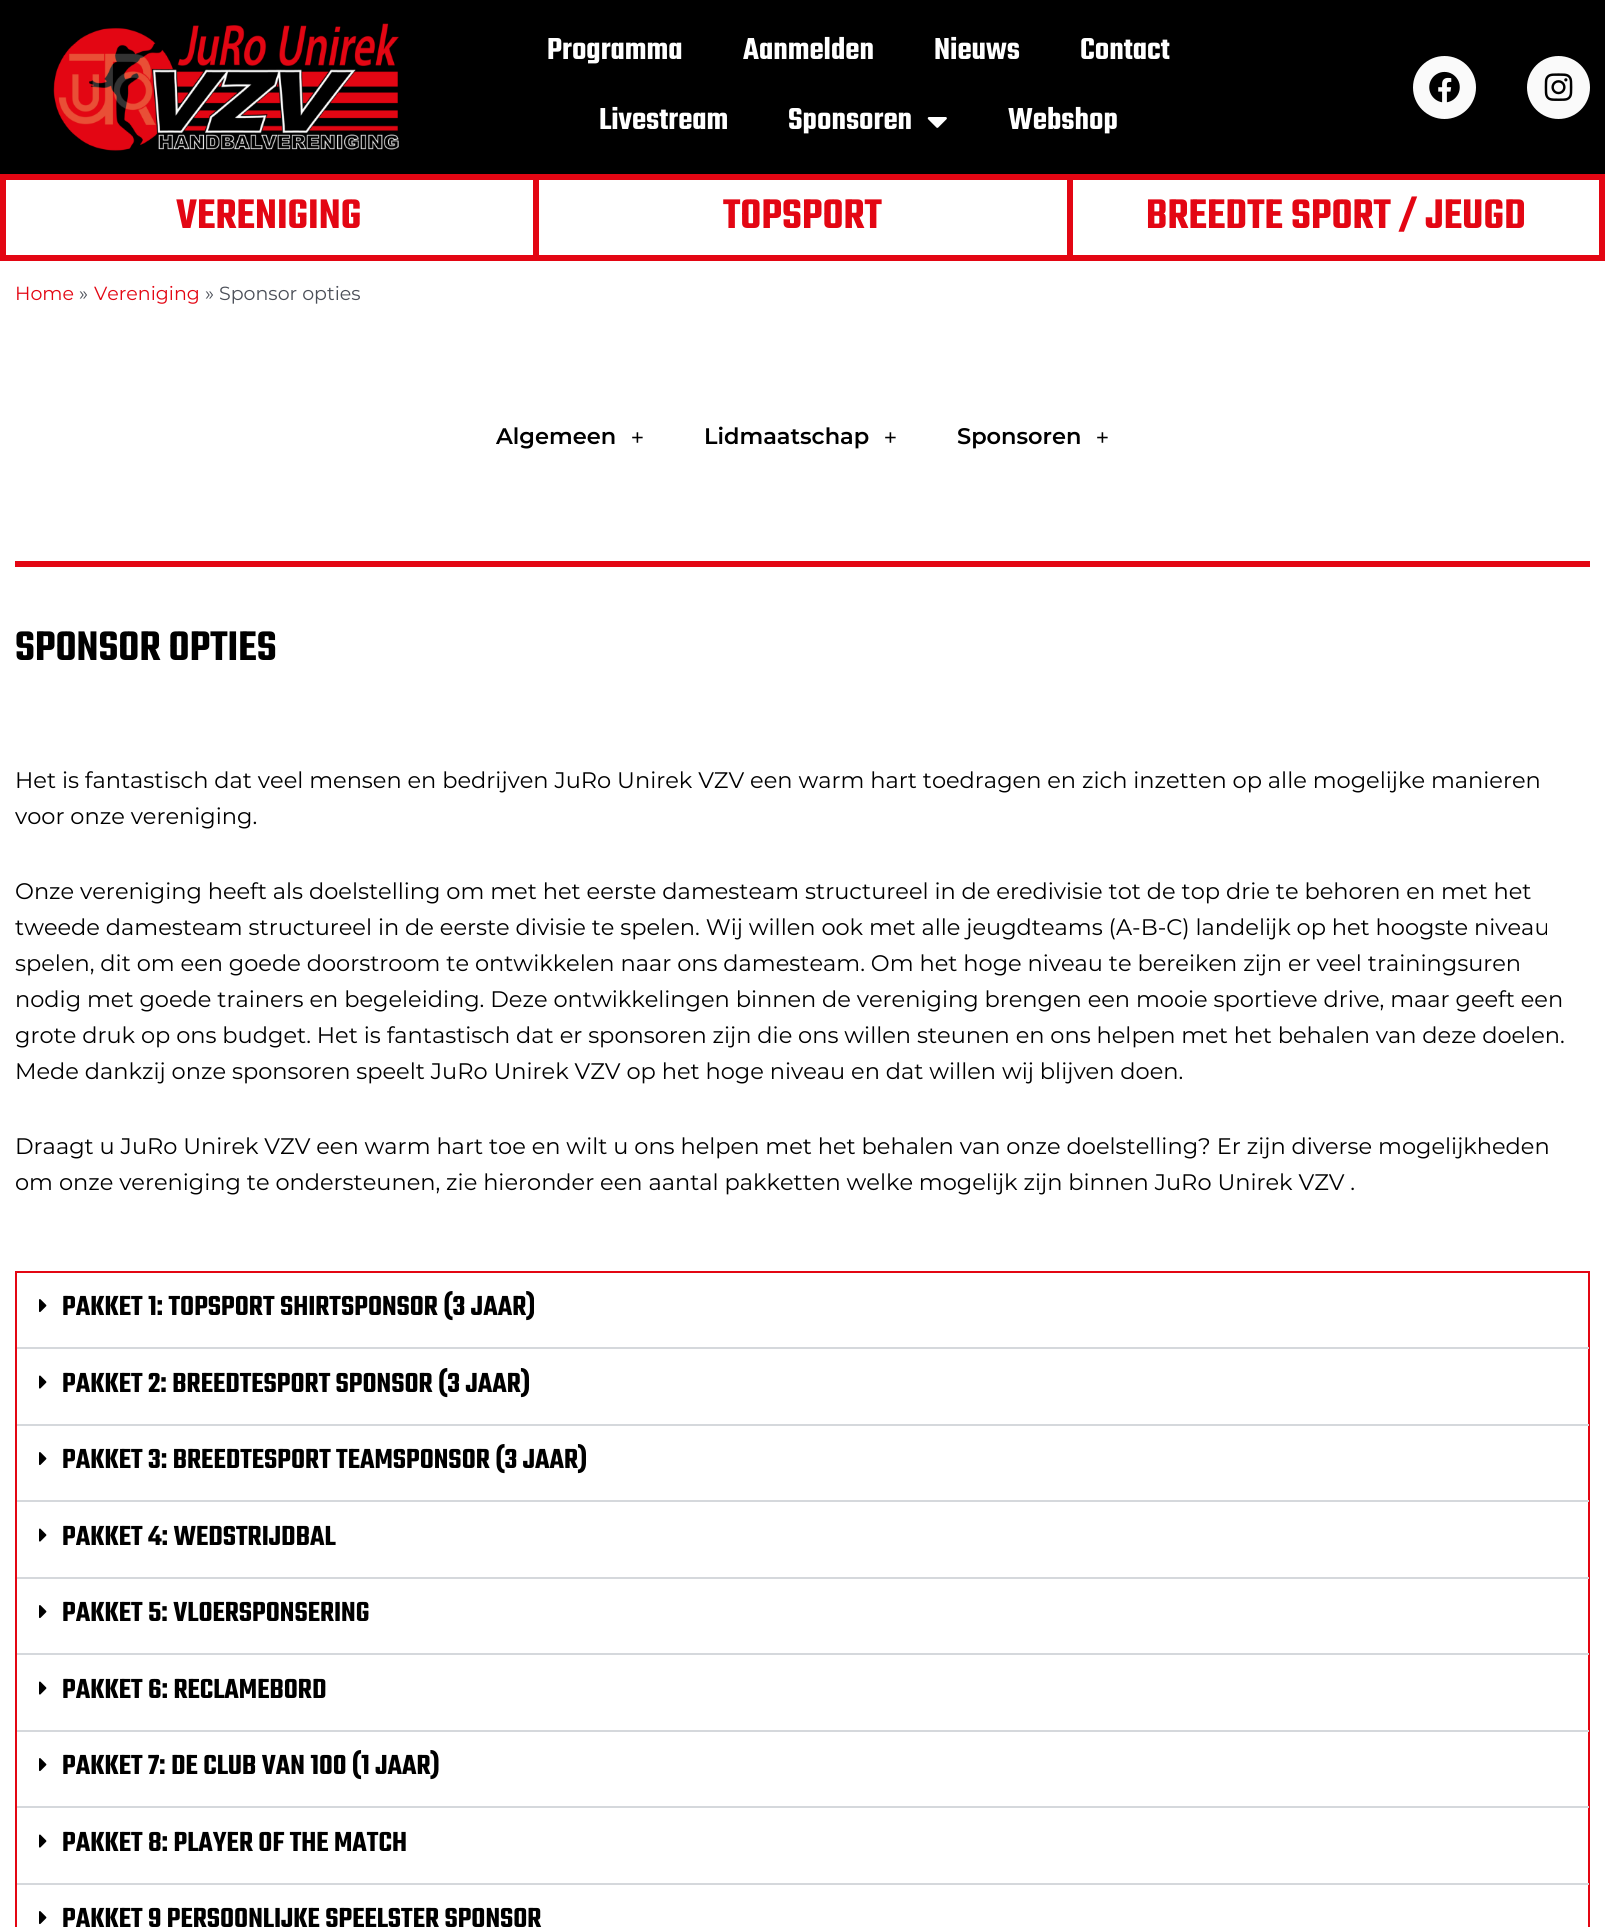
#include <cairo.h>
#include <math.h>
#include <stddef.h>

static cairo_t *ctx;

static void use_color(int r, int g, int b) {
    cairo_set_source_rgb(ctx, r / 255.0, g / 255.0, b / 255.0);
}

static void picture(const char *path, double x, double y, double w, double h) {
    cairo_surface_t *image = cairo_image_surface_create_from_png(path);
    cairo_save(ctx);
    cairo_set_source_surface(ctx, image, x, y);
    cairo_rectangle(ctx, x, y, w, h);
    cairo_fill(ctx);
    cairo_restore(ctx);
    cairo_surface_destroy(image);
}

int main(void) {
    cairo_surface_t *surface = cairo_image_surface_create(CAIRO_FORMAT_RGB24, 1605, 1927);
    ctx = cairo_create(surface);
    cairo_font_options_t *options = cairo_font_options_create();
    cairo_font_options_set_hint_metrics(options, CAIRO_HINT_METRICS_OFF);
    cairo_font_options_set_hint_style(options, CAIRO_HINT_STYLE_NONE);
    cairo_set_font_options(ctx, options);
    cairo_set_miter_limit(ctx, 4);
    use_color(255, 255, 255);
    cairo_paint(ctx);
    use_color(0, 0, 0);
    cairo_rectangle(ctx, 0, 0, 1605, 174);
    cairo_fill(ctx);
    picture("img1.png", 53, 23, 346, 128);
    cairo_select_font_face(ctx, "Teko SemiBold", CAIRO_FONT_SLANT_NORMAL, CAIRO_FONT_WEIGHT_NORMAL);
    cairo_set_font_size(ctx, 33);
    use_color(255, 255, 255);
    cairo_move_to(ctx, 547, 59);
    cairo_show_text(ctx, "Programma");
    cairo_move_to(ctx, 743, 59);
    cairo_show_text(ctx, "Aanmelden");
    cairo_move_to(ctx, 934, 59);
    cairo_show_text(ctx, "Nieuws");
    cairo_move_to(ctx, 1080, 59);
    cairo_show_text(ctx, "Contact");
    cairo_move_to(ctx, 599, 129);
    cairo_show_text(ctx, "Livestream");
    cairo_move_to(ctx, 788, 129);
    cairo_show_text(ctx, "Sponsoren");
    picture("img2.png", 927, 117, 20, 11);
    cairo_move_to(ctx, 1008, 129);
    cairo_show_text(ctx, "Webshop");
    use_color(250, 250, 250);
    cairo_new_path(ctx);
    cairo_arc(ctx, 1444.5, 87.5, 31.5, 0, 2 * M_PI);
    cairo_fill(ctx);
    picture("img3.png", 1429, 71, 31, 32);
    cairo_arc(ctx, 1558.5, 87.5, 31.5, 0, 2 * M_PI);
    cairo_fill(ctx);
    picture("img4.png", 1544, 73, 29, 28);
    use_color(227, 6, 19);
    cairo_rectangle(ctx, 0, 174, 1605, 6);
    cairo_fill(ctx);
    cairo_rectangle(ctx, 533, 174, 3, 87);
    cairo_fill(ctx);
    cairo_rectangle(ctx, 0, 255, 536, 6);
    cairo_fill(ctx);
    cairo_rectangle(ctx, 0, 174, 6, 87);
    cairo_fill(ctx);
    cairo_set_font_size(ctx, 45);
    cairo_move_to(ctx, 176, 228);
    cairo_show_text(ctx, "VERENIGING");
    cairo_rectangle(ctx, 1067, 174, 3, 87);
    cairo_fill(ctx);
    cairo_rectangle(ctx, 536, 255, 534, 6);
    cairo_fill(ctx);
    cairo_rectangle(ctx, 536, 174, 3, 87);
    cairo_fill(ctx);
    cairo_move_to(ctx, 723, 228);
    cairo_show_text(ctx, "TOPSPORT");
    cairo_rectangle(ctx, 1599, 174, 6, 87);
    cairo_fill(ctx);
    cairo_rectangle(ctx, 1070, 255, 535, 6);
    cairo_fill(ctx);
    cairo_rectangle(ctx, 1070, 174, 3, 87);
    cairo_fill(ctx);
    cairo_move_to(ctx, 1146, 228);
    cairo_show_text(ctx, "BREEDTE SPORT / JEUGD");
    cairo_select_font_face(ctx, "Montserrat", CAIRO_FONT_SLANT_NORMAL, CAIRO_FONT_WEIGHT_NORMAL);
    cairo_set_font_size(ctx, 19);
    cairo_move_to(ctx, 15, 300);
    cairo_show_text(ctx, "Home");
    use_color(75, 79, 88);
    cairo_move_to(ctx, 79, 300);
    cairo_show_text(ctx, "»");
    use_color(227, 6, 19);
    cairo_move_to(ctx, 94, 300);
    cairo_show_text(ctx, "Vereniging");
    use_color(75, 79, 88);
    cairo_move_to(ctx, 205, 300);
    cairo_show_text(ctx, "» Sponsor opties");
    cairo_select_font_face(ctx, "Montserrat SemiBold", CAIRO_FONT_SLANT_NORMAL, CAIRO_FONT_WEIGHT_NORMAL);
    cairo_set_font_size(ctx, 22.5);
    use_color(0, 0, 0);
    cairo_move_to(ctx, 496, 444);
    cairo_show_text(ctx, "Algemeen");
    cairo_select_font_face(ctx, "Liberation Serif", CAIRO_FONT_SLANT_NORMAL, CAIRO_FONT_WEIGHT_BOLD);
    cairo_move_to(ctx, 631, 445);
    cairo_show_text(ctx, "+");
    cairo_select_font_face(ctx, "Montserrat SemiBold", CAIRO_FONT_SLANT_NORMAL, CAIRO_FONT_WEIGHT_NORMAL);
    cairo_move_to(ctx, 704, 444);
    cairo_show_text(ctx, "Lidmaatschap");
    cairo_select_font_face(ctx, "Liberation Serif", CAIRO_FONT_SLANT_NORMAL, CAIRO_FONT_WEIGHT_BOLD);
    cairo_move_to(ctx, 884, 445);
    cairo_show_text(ctx, "+");
    cairo_select_font_face(ctx, "Montserrat SemiBold", CAIRO_FONT_SLANT_NORMAL, CAIRO_FONT_WEIGHT_NORMAL);
    cairo_move_to(ctx, 957, 444);
    cairo_show_text(ctx, "Sponsoren");
    cairo_select_font_face(ctx, "Liberation Serif", CAIRO_FONT_SLANT_NORMAL, CAIRO_FONT_WEIGHT_BOLD);
    cairo_move_to(ctx, 1096, 445);
    cairo_show_text(ctx, "+");
    use_color(227, 6, 19);
    cairo_rectangle(ctx, 15, 561, 1575, 6);
    cairo_fill(ctx);
    cairo_select_font_face(ctx, "Teko SemiBold", CAIRO_FONT_SLANT_NORMAL, CAIRO_FONT_WEIGHT_NORMAL);
    cairo_set_font_size(ctx, 45);
    use_color(0, 0, 0);
    cairo_move_to(ctx, 15, 660);
    cairo_show_text(ctx, "SPONSOR OPTIES");
    cairo_select_font_face(ctx, "Montserrat", CAIRO_FONT_SLANT_NORMAL, CAIRO_FONT_WEIGHT_NORMAL);
    cairo_set_font_size(ctx, 22.5);
    cairo_move_to(ctx, 15, 788);
    cairo_show_text(ctx, "Het is fantastisch dat veel mensen en bedrijven JuRo Unirek VZV een warm hart toedragen en zich inzetten op alle mogelijke manieren");
    cairo_move_to(ctx, 15, 824);
    cairo_show_text(ctx, "voor onze vereniging.");
    cairo_move_to(ctx, 15, 899);
    cairo_show_text(ctx, "Onze vereniging heeft als doelstelling om met het eerste damesteam structureel in de eredivisie tot de top drie te behoren en met het");
    cairo_move_to(ctx, 15, 935);
    cairo_show_text(ctx, "tweede damesteam structureel in de eerste divisie te spelen. Wij willen ook met alle jeugdteams (A-B-C) landelijk op het hoogste niveau");
    cairo_move_to(ctx, 15, 971);
    cairo_show_text(ctx, "spelen, dit om een goede doorstroom te ontwikkelen naar ons damesteam. Om het hoge niveau te bereiken zijn er veel trainingsuren");
    cairo_move_to(ctx, 15, 1007);
    cairo_show_text(ctx, "nodig met goede trainers en begeleiding. Deze ontwikkelingen binnen de vereniging brengen een mooie sportieve drive, maar geeft een");
    cairo_move_to(ctx, 15, 1043);
    cairo_show_text(ctx, "grote druk op ons budget. Het is fantastisch dat er sponsoren zijn die ons willen steunen en ons helpen met het behalen van deze doelen.");
    cairo_move_to(ctx, 15, 1079);
    cairo_show_text(ctx, "Mede dankzij onze sponsoren speelt JuRo Unirek VZV op het hoge niveau en dat willen wij blijven doen.");
    cairo_move_to(ctx, 15, 1154);
    cairo_show_text(ctx, "Draagt u JuRo Unirek VZV een warm hart toe en wilt u ons helpen met het behalen van onze doelstelling? Er zijn diverse mogelijkheden");
    cairo_move_to(ctx, 15, 1190);
    cairo_show_text(ctx, "om onze vereniging te ondersteunen, zie hieronder een aantal pakketten welke mogelijk zijn binnen JuRo Unirek VZV .");
    cairo_rectangle(ctx, 16, 1272, 1573, 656);
    use_color(227, 6, 19);
    cairo_stroke(ctx);
    use_color(213, 216, 220);
    cairo_rectangle(ctx, 17, 1347, 1572, 2);
    cairo_fill(ctx);
    picture("img5.png", 39, 1299, 8, 14);
    cairo_select_font_face(ctx, "Teko SemiBold", CAIRO_FONT_SLANT_NORMAL, CAIRO_FONT_WEIGHT_NORMAL);
    cairo_set_font_size(ctx, 30);
    use_color(0, 0, 0);
    cairo_move_to(ctx, 62, 1315);
    cairo_show_text(ctx, "PAKKET 1: TOPSPORT SHIRTSPONSOR (3 JAAR)");
    use_color(213, 216, 220);
    cairo_rectangle(ctx, 17, 1424, 1572, 2);
    cairo_fill(ctx);
    picture("img6.png", 39, 1375, 8, 14);
    use_color(0, 0, 0);
    cairo_move_to(ctx, 62, 1392);
    cairo_show_text(ctx, "PAKKET 2: BREEDTESPORT SPONSOR (3 JAAR)");
    use_color(213, 216, 220);
    cairo_rectangle(ctx, 17, 1500, 1572, 2);
    cairo_fill(ctx);
    picture("img5.png", 39, 1452, 8, 14);
    use_color(0, 0, 0);
    cairo_move_to(ctx, 62, 1468);
    cairo_show_text(ctx, "PAKKET 3: BREEDTESPORT TEAMSPONSOR (3 JAAR)");
    use_color(213, 216, 220);
    cairo_rectangle(ctx, 17, 1577, 1572, 2);
    cairo_fill(ctx);
    picture("img6.png", 39, 1528, 8, 14);
    use_color(0, 0, 0);
    cairo_move_to(ctx, 62, 1545);
    cairo_show_text(ctx, "PAKKET 4: WEDSTRIJDBAL");
    use_color(213, 216, 220);
    cairo_rectangle(ctx, 17, 1653, 1572, 2);
    cairo_fill(ctx);
    picture("img5.png", 39, 1605, 8, 14);
    use_color(0, 0, 0);
    cairo_move_to(ctx, 62, 1621);
    cairo_show_text(ctx, "PAKKET 5: VLOERSPONSERING");
    use_color(213, 216, 220);
    cairo_rectangle(ctx, 17, 1730, 1572, 2);
    cairo_fill(ctx);
    picture("img6.png", 39, 1681, 8, 14);
    use_color(0, 0, 0);
    cairo_move_to(ctx, 62, 1698);
    cairo_show_text(ctx, "PAKKET 6: RECLAMEBORD");
    use_color(213, 216, 220);
    cairo_rectangle(ctx, 17, 1806, 1572, 2);
    cairo_fill(ctx);
    picture("img5.png", 39, 1758, 8, 14);
    use_color(0, 0, 0);
    cairo_move_to(ctx, 62, 1774);
    cairo_show_text(ctx, "PAKKET 7: DE CLUB VAN 100 (1 JAAR)");
    use_color(213, 216, 220);
    cairo_rectangle(ctx, 17, 1883, 1572, 2);
    cairo_fill(ctx);
    picture("img6.png", 39, 1834, 8, 14);
    use_color(0, 0, 0);
    cairo_move_to(ctx, 62, 1851);
    cairo_show_text(ctx, "PAKKET 8: PLAYER OF THE MATCH");
    picture("img5.png", 39, 1911, 8, 14);
    cairo_move_to(ctx, 62, 1927);
    cairo_show_text(ctx, "PAKKET 9 PERSOONLIJKE SPEELSTER SPONSOR");
    cairo_surface_write_to_png(surface, "result.png");
    cairo_font_options_destroy(options);
    cairo_destroy(ctx);
    cairo_surface_destroy(surface);
    return 0;
}
